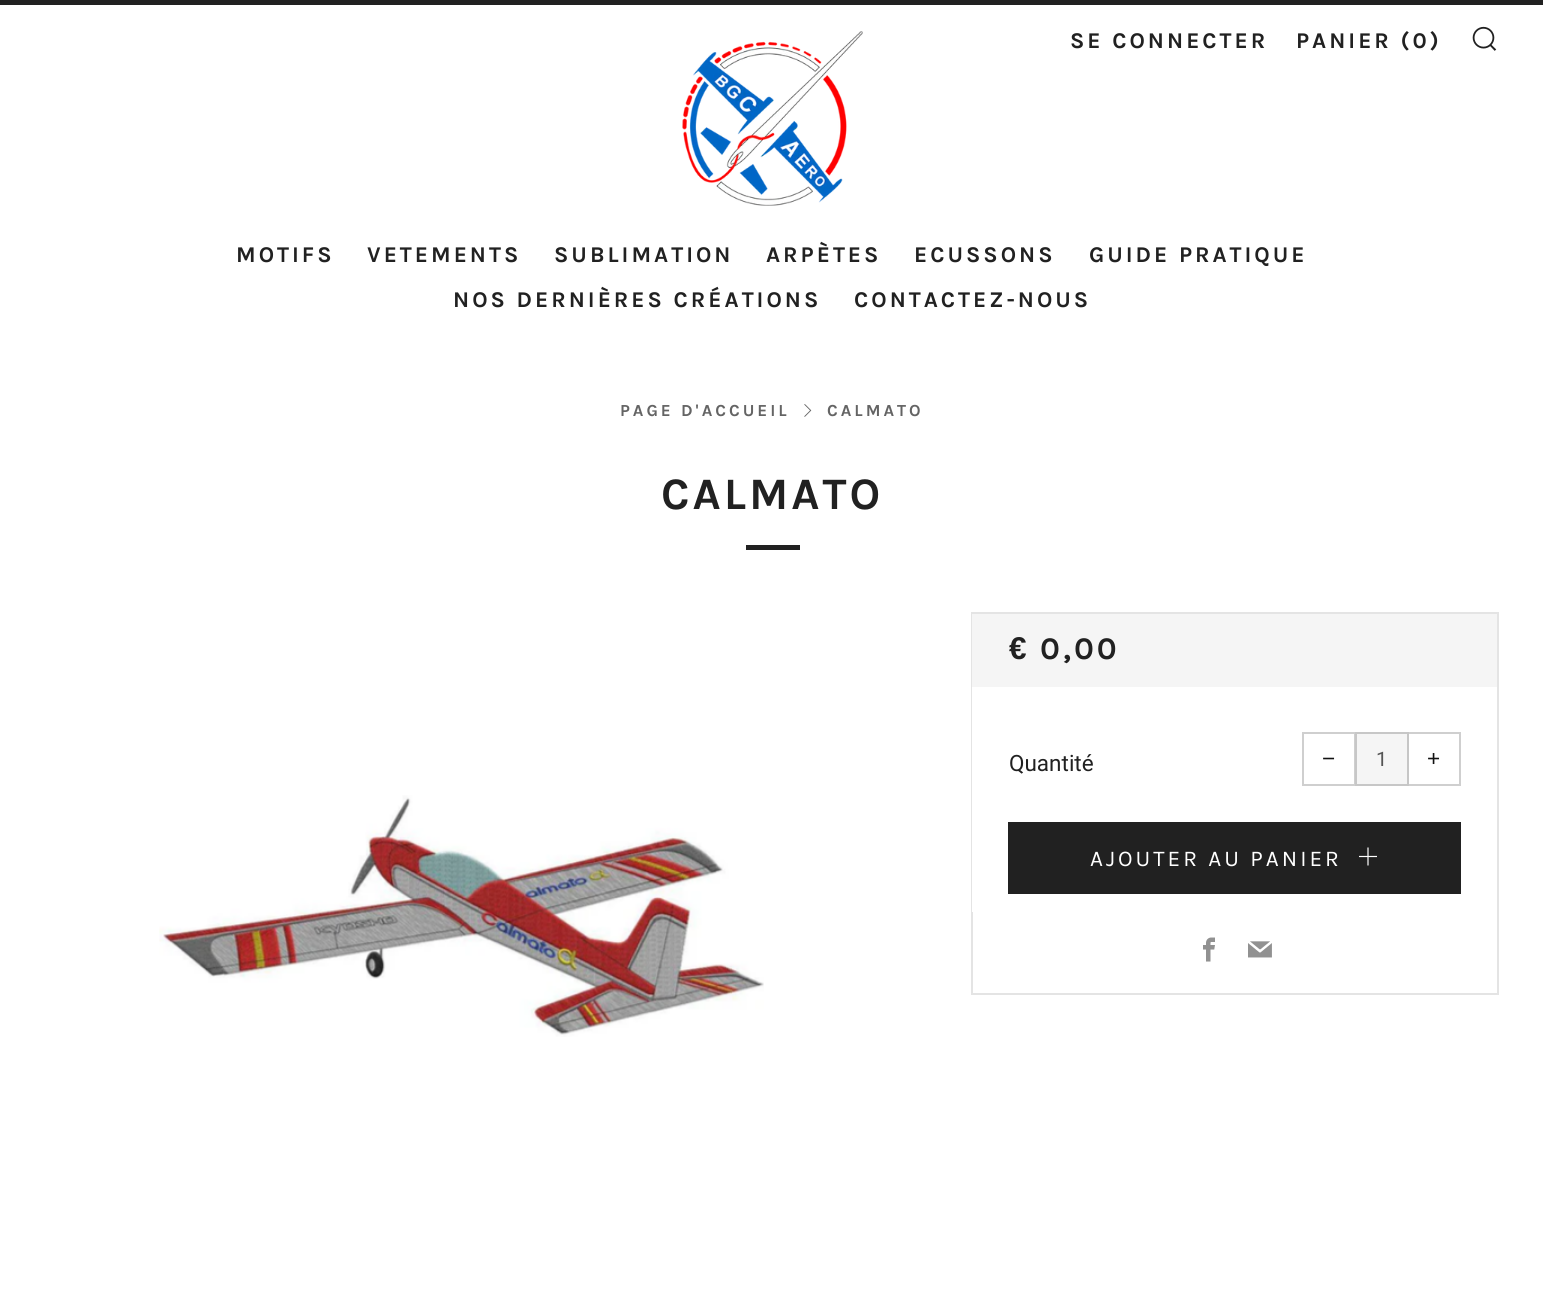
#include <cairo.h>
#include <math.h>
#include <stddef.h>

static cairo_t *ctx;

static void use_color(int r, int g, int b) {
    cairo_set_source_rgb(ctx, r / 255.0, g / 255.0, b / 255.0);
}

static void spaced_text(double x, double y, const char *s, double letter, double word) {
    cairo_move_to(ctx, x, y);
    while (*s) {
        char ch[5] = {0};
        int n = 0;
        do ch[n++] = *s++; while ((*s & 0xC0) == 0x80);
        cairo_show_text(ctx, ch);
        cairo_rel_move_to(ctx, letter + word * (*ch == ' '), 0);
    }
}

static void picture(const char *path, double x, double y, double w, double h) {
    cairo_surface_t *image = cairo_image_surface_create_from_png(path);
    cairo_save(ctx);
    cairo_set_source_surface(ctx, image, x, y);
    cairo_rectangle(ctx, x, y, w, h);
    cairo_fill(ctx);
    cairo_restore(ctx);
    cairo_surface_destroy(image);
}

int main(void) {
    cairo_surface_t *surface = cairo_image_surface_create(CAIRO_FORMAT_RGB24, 1543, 1291);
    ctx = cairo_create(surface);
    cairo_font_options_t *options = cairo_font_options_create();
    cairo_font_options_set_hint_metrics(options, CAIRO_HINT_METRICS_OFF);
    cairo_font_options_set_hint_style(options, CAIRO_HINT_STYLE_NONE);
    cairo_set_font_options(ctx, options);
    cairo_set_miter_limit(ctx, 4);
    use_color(255, 255, 255);
    cairo_paint(ctx);
    use_color(33, 33, 33);
    cairo_rectangle(ctx, 0, 0, 1543, 5);
    cairo_fill(ctx);
    cairo_select_font_face(ctx, "Karla", CAIRO_FONT_SLANT_NORMAL, CAIRO_FONT_WEIGHT_BOLD);
    cairo_set_font_size(ctx, 22.5);
    spaced_text(1070, 48, "SE CONNECTER", 3, 0);
    spaced_text(1296, 48, "PANIER (0)", 3, 0);
    picture("img1.png", 1472, 26, 25, 25);
    spaced_text(236, 262, "MOTIFS", 3, 0);
    spaced_text(367, 262, "VETEMENTS", 3, 0);
    spaced_text(554, 262, "SUBLIMATION", 3, 0);
    spaced_text(766, 262, "ARPÈTES", 3, 0);
    spaced_text(914, 262, "ECUSSONS", 3, 0);
    spaced_text(1089, 262, "GUIDE PRATIQUE", 3, 0);
    spaced_text(453, 307, "NOS DERNIÈRES CRÉATIONS", 3, 0);
    spaced_text(854, 307, "CONTACTEZ-NOUS", 3, 0);
    picture("img2.png", 682, 31, 181, 175);
    cairo_set_font_size(ctx, 16.9);
    use_color(100, 100, 100);
    spaced_text(620, 416, "PAGE D'ACCUEIL", 3, 0);
    picture("img3.png", 804, 404, 8, 13);
    spaced_text(827, 416, "CALMATO", 3, 0);
    cairo_set_font_size(ctx, 45);
    use_color(33, 33, 33);
    spaced_text(661, 509, "CALMATO", 3, 0);
    cairo_rectangle(ctx, 746, 545, 54, 5);
    cairo_fill(ctx);
    cairo_rectangle(ctx, 972, 613, 526, 381);
    use_color(228, 228, 228);
    cairo_stroke(ctx);
    use_color(245, 245, 245);
    cairo_rectangle(ctx, 972, 614, 525, 73);
    cairo_fill(ctx);
    cairo_select_font_face(ctx, "Liberation Sans", CAIRO_FONT_SLANT_NORMAL, CAIRO_FONT_WEIGHT_BOLD);
    cairo_set_font_size(ctx, 31.5);
    use_color(33, 33, 33);
    spaced_text(1009, 659, "€", 3, 0);
    cairo_select_font_face(ctx, "Karla", CAIRO_FONT_SLANT_NORMAL, CAIRO_FONT_WEIGHT_BOLD);
    spaced_text(1040, 659, "0,00", 3, 0);
    use_color(255, 255, 255);
    cairo_rectangle(ctx, 972, 687, 1, 225);
    cairo_fill(ctx);
    cairo_select_font_face(ctx, "Roboto", CAIRO_FONT_SLANT_NORMAL, CAIRO_FONT_WEIGHT_NORMAL);
    cairo_set_font_size(ctx, 22.5);
    use_color(33, 33, 33);
    cairo_move_to(ctx, 1009, 771);
    cairo_show_text(ctx, "Quantité");
    cairo_rectangle(ctx, 1303, 733, 52, 52);
    use_color(207, 207, 207);
    cairo_stroke(ctx);
    cairo_select_font_face(ctx, "Liberation Sans", CAIRO_FONT_SLANT_NORMAL, CAIRO_FONT_WEIGHT_NORMAL);
    use_color(17, 17, 17);
    cairo_move_to(ctx, 1322, 766);
    cairo_show_text(ctx, "−");
    use_color(245, 245, 245);
    cairo_rectangle(ctx, 1356, 733, 52, 52);
    cairo_fill_preserve(ctx);
    use_color(199, 199, 199);
    cairo_stroke(ctx);
    cairo_select_font_face(ctx, "Roboto", CAIRO_FONT_SLANT_NORMAL, CAIRO_FONT_WEIGHT_NORMAL);
    cairo_set_font_size(ctx, 20);
    use_color(85, 85, 85);
    cairo_move_to(ctx, 1376, 766);
    cairo_show_text(ctx, "1");
    cairo_set_source_rgba(ctx, 1, 1, 1, 0.8);
    cairo_rectangle(ctx, 1407, 732, 2, 54);
    cairo_fill(ctx);
    cairo_rectangle(ctx, 1408, 733, 52, 52);
    cairo_set_source_rgba(ctx, 0.067, 0.067, 0.067, 0.2);
    cairo_stroke(ctx);
    cairo_select_font_face(ctx, "Liberation Sans", CAIRO_FONT_SLANT_NORMAL, CAIRO_FONT_WEIGHT_NORMAL);
    cairo_set_font_size(ctx, 22.5);
    use_color(17, 17, 17);
    cairo_move_to(ctx, 1427, 766);
    cairo_show_text(ctx, "+");
    use_color(33, 33, 33);
    cairo_rectangle(ctx, 1008, 822, 453, 72);
    cairo_fill(ctx);
    cairo_select_font_face(ctx, "Karla", CAIRO_FONT_SLANT_NORMAL, CAIRO_FONT_WEIGHT_NORMAL);
    use_color(255, 255, 255);
    spaced_text(1090, 866, "AJOUTER AU PANIER", 3, 0);
    picture("img4.png", 1359, 847, 18, 19);
    picture("img5.png", 1203, 937, 12, 25);
    picture("img6.png", 1248, 941, 24, 17);
    picture("img7.png", 159, 795, 605, 242);
    cairo_surface_write_to_png(surface, "result.png");
    cairo_font_options_destroy(options);
    cairo_destroy(ctx);
    cairo_surface_destroy(surface);
    return 0;
}
